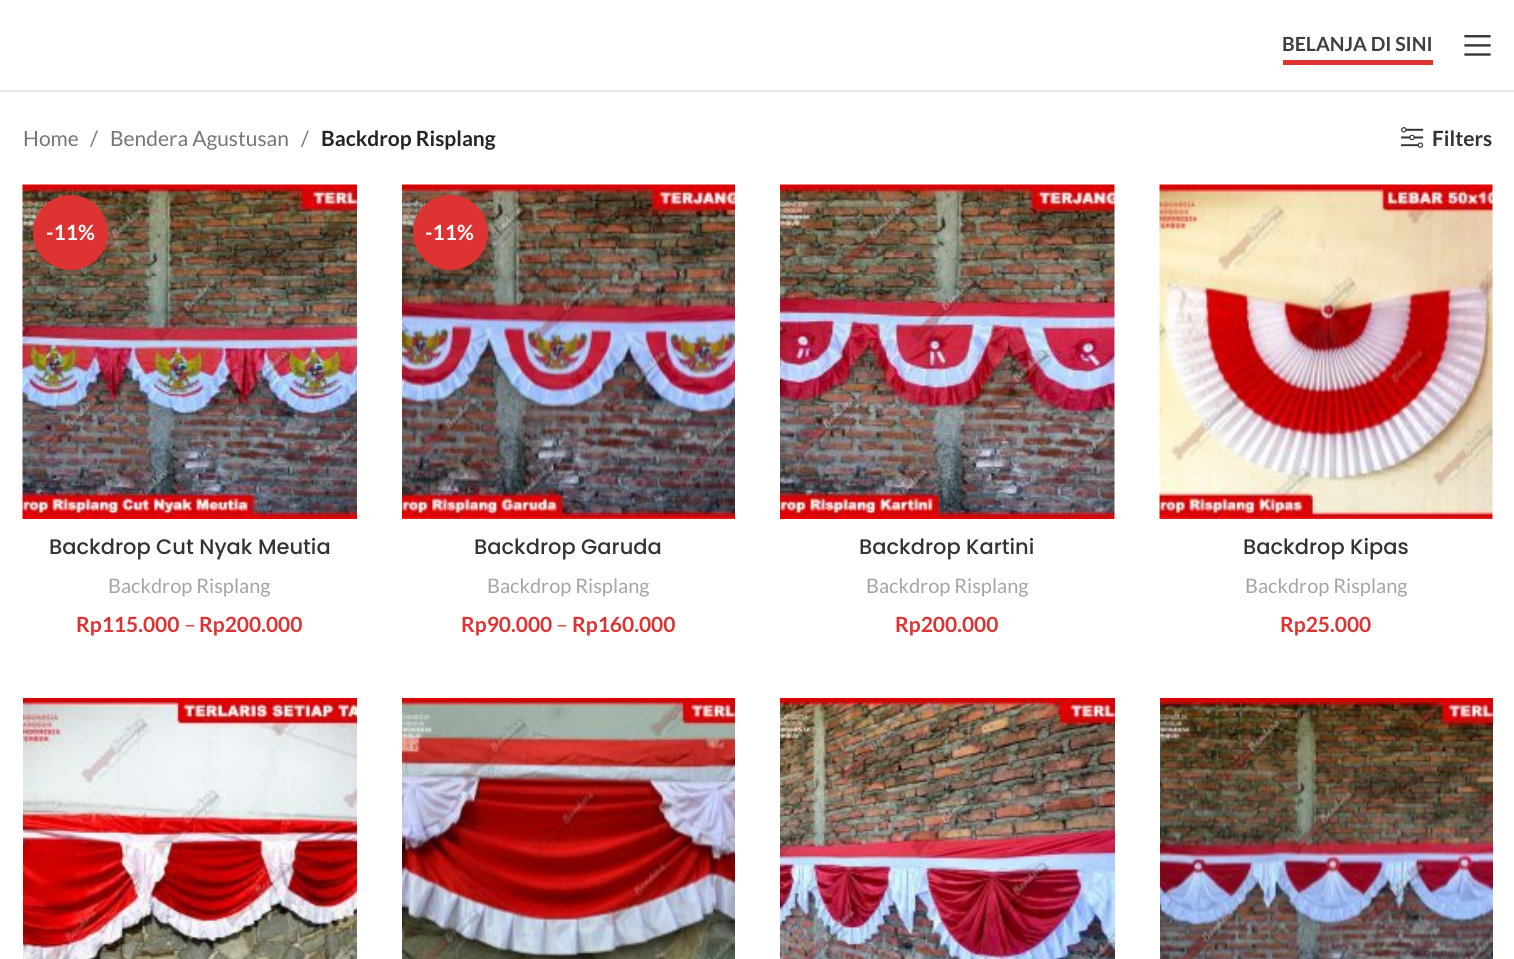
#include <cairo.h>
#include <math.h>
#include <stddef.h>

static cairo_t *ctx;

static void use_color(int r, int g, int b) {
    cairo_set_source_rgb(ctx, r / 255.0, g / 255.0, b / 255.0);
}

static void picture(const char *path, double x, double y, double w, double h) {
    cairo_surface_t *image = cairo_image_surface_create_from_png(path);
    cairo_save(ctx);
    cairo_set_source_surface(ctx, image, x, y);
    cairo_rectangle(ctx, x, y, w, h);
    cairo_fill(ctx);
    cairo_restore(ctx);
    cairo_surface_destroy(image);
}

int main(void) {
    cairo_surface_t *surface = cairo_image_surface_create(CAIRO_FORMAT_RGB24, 1514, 959);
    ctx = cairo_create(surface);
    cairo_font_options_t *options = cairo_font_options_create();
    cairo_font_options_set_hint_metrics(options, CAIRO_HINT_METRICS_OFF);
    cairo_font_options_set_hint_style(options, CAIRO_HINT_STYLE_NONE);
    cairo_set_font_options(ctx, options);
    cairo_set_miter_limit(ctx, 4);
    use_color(255, 255, 255);
    cairo_paint(ctx);
    use_color(232, 232, 232);
    cairo_rectangle(ctx, 0, 90, 1514, 2);
    cairo_fill(ctx);
    use_color(221, 51, 51);
    cairo_rectangle(ctx, 1283, 60, 150, 5);
    cairo_fill(ctx);
    cairo_select_font_face(ctx, "Lato", CAIRO_FONT_SLANT_NORMAL, CAIRO_FONT_WEIGHT_BOLD);
    cairo_set_font_size(ctx, 19.5);
    use_color(62, 62, 62);
    cairo_move_to(ctx, 1282, 51);
    cairo_show_text(ctx, "BELANJA DI SINI");
    picture("img1.png", 1464, 35, 27, 21);
    cairo_select_font_face(ctx, "Lato", CAIRO_FONT_SLANT_NORMAL, CAIRO_FONT_WEIGHT_NORMAL);
    cairo_set_font_size(ctx, 21);
    use_color(118, 118, 118);
    cairo_move_to(ctx, 23, 146);
    cairo_show_text(ctx, "Home");
    cairo_move_to(ctx, 90, 146);
    cairo_show_text(ctx, "/");
    cairo_move_to(ctx, 110, 146);
    cairo_show_text(ctx, "Bendera Agustusan");
    cairo_move_to(ctx, 301, 146);
    cairo_show_text(ctx, "/");
    cairo_select_font_face(ctx, "Lato", CAIRO_FONT_SLANT_NORMAL, CAIRO_FONT_WEIGHT_BOLD);
    use_color(36, 36, 36);
    cairo_move_to(ctx, 321, 146);
    cairo_show_text(ctx, "Backdrop Risplang");
    picture("img2.png", 1401, 127, 23, 21);
    use_color(51, 51, 51);
    cairo_move_to(ctx, 1432, 146);
    cairo_show_text(ctx, "Filters");
    picture("img3.png", 22, 184, 335, 335);
    use_color(221, 51, 51);
    cairo_arc(ctx, 70.5, 232.5, 37.5, 0, 2 * M_PI);
    cairo_fill(ctx);
    use_color(255, 255, 255);
    cairo_move_to(ctx, 46, 240);
    cairo_show_text(ctx, "-11%");
    cairo_select_font_face(ctx, "Poppins Medium", CAIRO_FONT_SLANT_NORMAL, CAIRO_FONT_WEIGHT_NORMAL);
    use_color(51, 51, 51);
    cairo_move_to(ctx, 49, 554);
    cairo_show_text(ctx, "Backdrop Cut Nyak Meutia");
    cairo_select_font_face(ctx, "Lato", CAIRO_FONT_SLANT_NORMAL, CAIRO_FONT_WEIGHT_NORMAL);
    cairo_set_font_size(ctx, 20);
    use_color(165, 165, 165);
    cairo_move_to(ctx, 108, 593);
    cairo_show_text(ctx, "Backdrop Risplang");
    cairo_select_font_face(ctx, "Lato", CAIRO_FONT_SLANT_NORMAL, CAIRO_FONT_WEIGHT_BOLD);
    cairo_set_font_size(ctx, 21);
    use_color(221, 51, 51);
    cairo_move_to(ctx, 76, 632);
    cairo_show_text(ctx, "Rp115.000");
    cairo_select_font_face(ctx, "Lato", CAIRO_FONT_SLANT_NORMAL, CAIRO_FONT_WEIGHT_NORMAL);
    cairo_move_to(ctx, 184, 632);
    cairo_show_text(ctx, "–");
    cairo_select_font_face(ctx, "Lato", CAIRO_FONT_SLANT_NORMAL, CAIRO_FONT_WEIGHT_BOLD);
    cairo_move_to(ctx, 199, 632);
    cairo_show_text(ctx, "Rp200.000");
    picture("img4.png", 402, 184, 333, 335);
    cairo_arc(ctx, 450.5, 232.5, 37.5, 0, 2 * M_PI);
    cairo_fill(ctx);
    use_color(255, 255, 255);
    cairo_move_to(ctx, 425, 240);
    cairo_show_text(ctx, "-11%");
    cairo_select_font_face(ctx, "Poppins Medium", CAIRO_FONT_SLANT_NORMAL, CAIRO_FONT_WEIGHT_NORMAL);
    use_color(51, 51, 51);
    cairo_move_to(ctx, 474, 554);
    cairo_show_text(ctx, "Backdrop Garuda");
    cairo_select_font_face(ctx, "Lato", CAIRO_FONT_SLANT_NORMAL, CAIRO_FONT_WEIGHT_NORMAL);
    cairo_set_font_size(ctx, 20);
    use_color(165, 165, 165);
    cairo_move_to(ctx, 487, 593);
    cairo_show_text(ctx, "Backdrop Risplang");
    cairo_select_font_face(ctx, "Lato", CAIRO_FONT_SLANT_NORMAL, CAIRO_FONT_WEIGHT_BOLD);
    cairo_set_font_size(ctx, 21);
    use_color(221, 51, 51);
    cairo_move_to(ctx, 461, 632);
    cairo_show_text(ctx, "Rp90.000");
    cairo_select_font_face(ctx, "Lato", CAIRO_FONT_SLANT_NORMAL, CAIRO_FONT_WEIGHT_NORMAL);
    cairo_move_to(ctx, 556, 632);
    cairo_show_text(ctx, "–");
    cairo_select_font_face(ctx, "Lato", CAIRO_FONT_SLANT_NORMAL, CAIRO_FONT_WEIGHT_BOLD);
    cairo_move_to(ctx, 572, 632);
    cairo_show_text(ctx, "Rp160.000");
    picture("img5.png", 780, 184, 335, 335);
    cairo_select_font_face(ctx, "Poppins Medium", CAIRO_FONT_SLANT_NORMAL, CAIRO_FONT_WEIGHT_NORMAL);
    use_color(51, 51, 51);
    cairo_move_to(ctx, 859, 554);
    cairo_show_text(ctx, "Backdrop Kartini");
    cairo_select_font_face(ctx, "Lato", CAIRO_FONT_SLANT_NORMAL, CAIRO_FONT_WEIGHT_NORMAL);
    cairo_set_font_size(ctx, 20);
    use_color(165, 165, 165);
    cairo_move_to(ctx, 866, 593);
    cairo_show_text(ctx, "Backdrop Risplang");
    cairo_select_font_face(ctx, "Lato", CAIRO_FONT_SLANT_NORMAL, CAIRO_FONT_WEIGHT_BOLD);
    cairo_set_font_size(ctx, 21);
    use_color(221, 51, 51);
    cairo_move_to(ctx, 895, 632);
    cairo_show_text(ctx, "Rp200.000");
    picture("img6.png", 1159, 184, 334, 335);
    cairo_select_font_face(ctx, "Poppins Medium", CAIRO_FONT_SLANT_NORMAL, CAIRO_FONT_WEIGHT_NORMAL);
    use_color(51, 51, 51);
    cairo_move_to(ctx, 1243, 554);
    cairo_show_text(ctx, "Backdrop Kipas");
    cairo_select_font_face(ctx, "Lato", CAIRO_FONT_SLANT_NORMAL, CAIRO_FONT_WEIGHT_NORMAL);
    cairo_set_font_size(ctx, 20);
    use_color(165, 165, 165);
    cairo_move_to(ctx, 1245, 593);
    cairo_show_text(ctx, "Backdrop Risplang");
    cairo_select_font_face(ctx, "Lato", CAIRO_FONT_SLANT_NORMAL, CAIRO_FONT_WEIGHT_BOLD);
    cairo_set_font_size(ctx, 21);
    use_color(221, 51, 51);
    cairo_move_to(ctx, 1280, 632);
    cairo_show_text(ctx, "Rp25.000");
    picture("img7.png", 23, 698, 334, 261);
    picture("img8.png", 402, 698, 333, 261);
    picture("img9.png", 780, 698, 335, 261);
    picture("img10.png", 1160, 698, 333, 261);
    cairo_surface_write_to_png(surface, "result.png");
    cairo_font_options_destroy(options);
    cairo_destroy(ctx);
    cairo_surface_destroy(surface);
    return 0;
}
